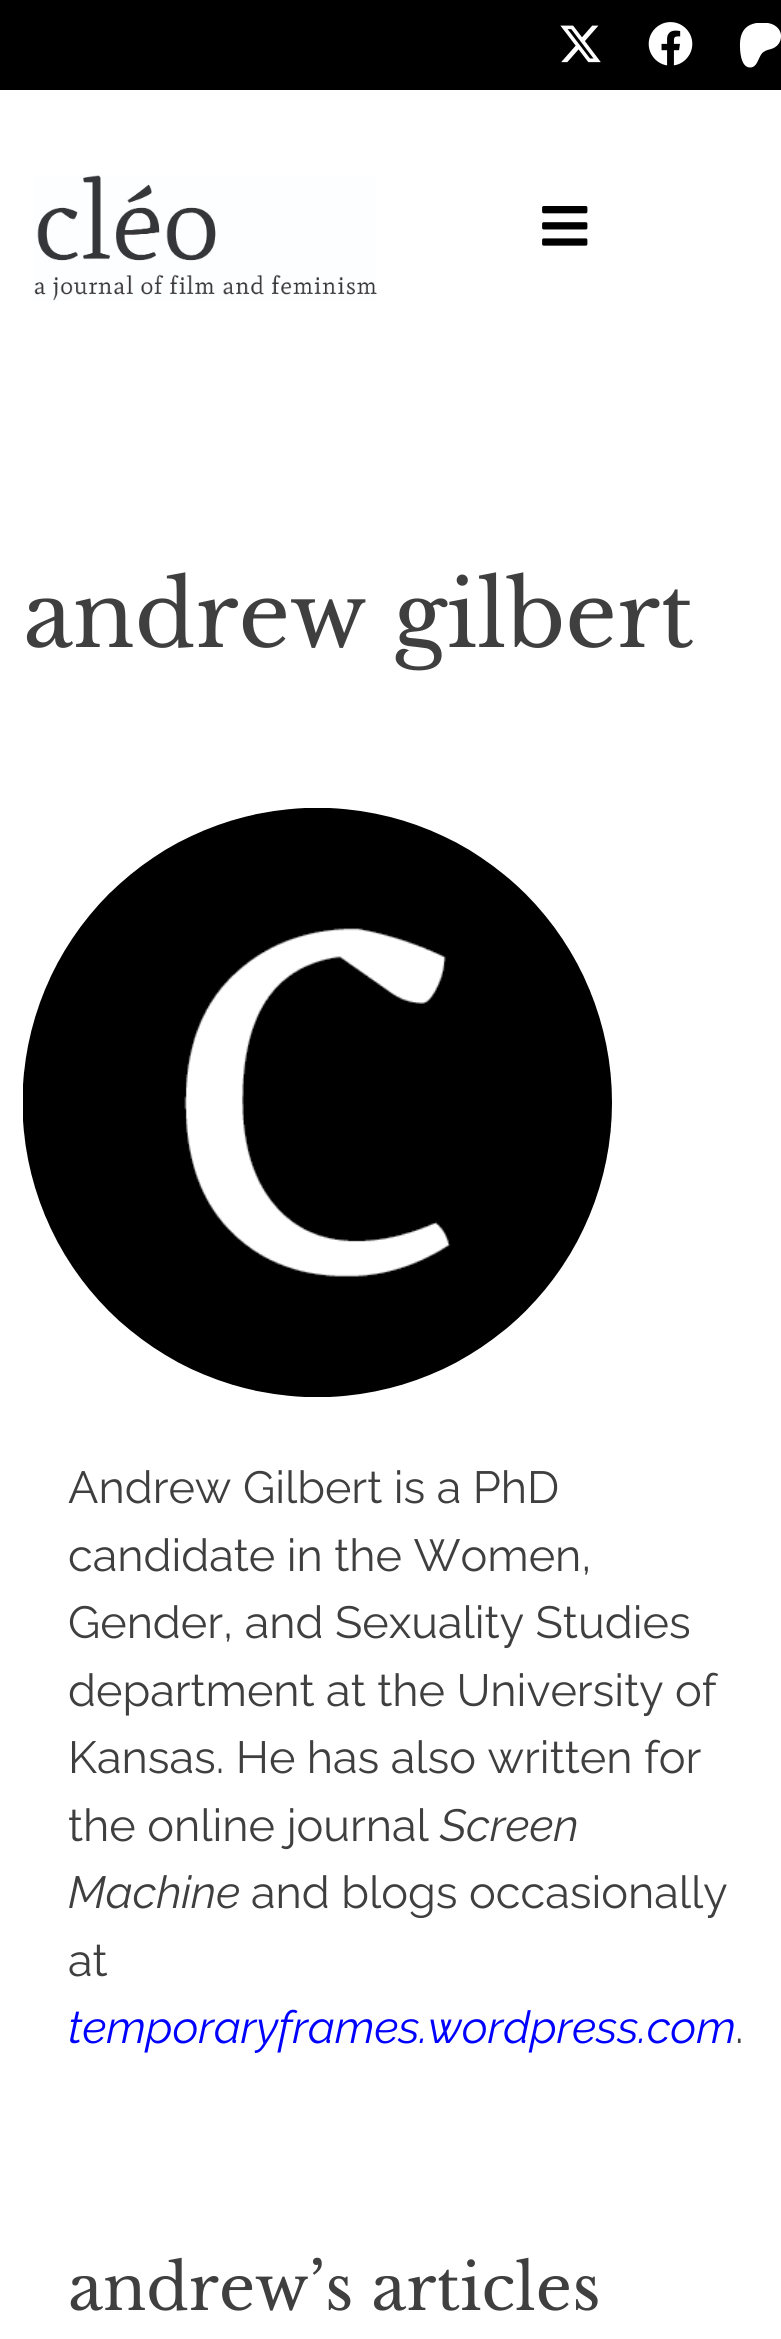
#include <cairo.h>
#include <math.h>
#include <stddef.h>

static cairo_t *ctx;

static void use_color(int r, int g, int b) {
    cairo_set_source_rgb(ctx, r / 255.0, g / 255.0, b / 255.0);
}

static void picture(const char *path, double x, double y, double w, double h) {
    cairo_surface_t *image = cairo_image_surface_create_from_png(path);
    cairo_save(ctx);
    cairo_set_source_surface(ctx, image, x, y);
    cairo_rectangle(ctx, x, y, w, h);
    cairo_fill(ctx);
    cairo_restore(ctx);
    cairo_surface_destroy(image);
}

int main(void) {
    cairo_surface_t *surface = cairo_image_surface_create(CAIRO_FORMAT_RGB24, 781, 2339);
    ctx = cairo_create(surface);
    cairo_font_options_t *options = cairo_font_options_create();
    cairo_font_options_set_hint_metrics(options, CAIRO_HINT_METRICS_OFF);
    cairo_font_options_set_hint_style(options, CAIRO_HINT_STYLE_NONE);
    cairo_set_font_options(ctx, options);
    cairo_set_miter_limit(ctx, 4);
    use_color(255, 255, 255);
    cairo_paint(ctx);
    use_color(0, 0, 0);
    cairo_rectangle(ctx, 0, 0, 781, 90);
    cairo_fill(ctx);
    picture("img1.png", 560, 25, 41, 38);
    picture("img2.png", 648, 22, 45, 44);
    picture("img3.png", 739, 23, 42, 45);
    picture("img4.png", 34, 175, 343, 126);
    picture("img5.png", 542, 206, 46, 40);
    cairo_select_font_face(ctx, "Libre Baskerville", CAIRO_FONT_SLANT_NORMAL, CAIRO_FONT_WEIGHT_NORMAL);
    cairo_set_font_size(ctx, 90);
    use_color(63, 63, 63);
    cairo_move_to(ctx, 23, 647);
    cairo_show_text(ctx, "andrew gilbert");
    picture("img6.png", 23, 808, 589, 589);
    cairo_select_font_face(ctx, "Raleway", CAIRO_FONT_SLANT_NORMAL, CAIRO_FONT_WEIGHT_NORMAL);
    cairo_set_font_size(ctx, 45);
    cairo_move_to(ctx, 68, 1503);
    cairo_show_text(ctx, "Andrew Gilbert is a PhD");
    cairo_move_to(ctx, 68, 1571);
    cairo_show_text(ctx, "candidate in the Women,");
    cairo_move_to(ctx, 68, 1638);
    cairo_show_text(ctx, "Gender, and Sexuality Studies");
    cairo_move_to(ctx, 68, 1706);
    cairo_show_text(ctx, "department at the University of");
    cairo_move_to(ctx, 68, 1773);
    cairo_show_text(ctx, "Kansas. He has also written for");
    cairo_move_to(ctx, 68, 1841);
    cairo_show_text(ctx, "the online journal");
    cairo_select_font_face(ctx, "Raleway", CAIRO_FONT_SLANT_ITALIC, CAIRO_FONT_WEIGHT_NORMAL);
    cairo_move_to(ctx, 440, 1841);
    cairo_show_text(ctx, "Screen");
    cairo_move_to(ctx, 68, 1908);
    cairo_show_text(ctx, "Machine");
    cairo_select_font_face(ctx, "Raleway", CAIRO_FONT_SLANT_NORMAL, CAIRO_FONT_WEIGHT_NORMAL);
    cairo_move_to(ctx, 251, 1908);
    cairo_show_text(ctx, "and blogs occasionally");
    cairo_move_to(ctx, 68, 1976);
    cairo_show_text(ctx, "at");
    cairo_select_font_face(ctx, "Raleway", CAIRO_FONT_SLANT_ITALIC, CAIRO_FONT_WEIGHT_NORMAL);
    use_color(0, 0, 255);
    cairo_move_to(ctx, 68, 2043);
    cairo_show_text(ctx, "temporaryframes.wordpress.com");
    cairo_select_font_face(ctx, "Raleway", CAIRO_FONT_SLANT_NORMAL, CAIRO_FONT_WEIGHT_NORMAL);
    use_color(63, 63, 63);
    cairo_move_to(ctx, 735, 2043);
    cairo_show_text(ctx, ".");
    cairo_select_font_face(ctx, "Libre Baskerville", CAIRO_FONT_SLANT_NORMAL, CAIRO_FONT_WEIGHT_NORMAL);
    cairo_set_font_size(ctx, 63);
    cairo_move_to(ctx, 68, 2310);
    cairo_show_text(ctx, "andrew’s articles");
    cairo_surface_write_to_png(surface, "result.png");
    cairo_font_options_destroy(options);
    cairo_destroy(ctx);
    cairo_surface_destroy(surface);
    return 0;
}
